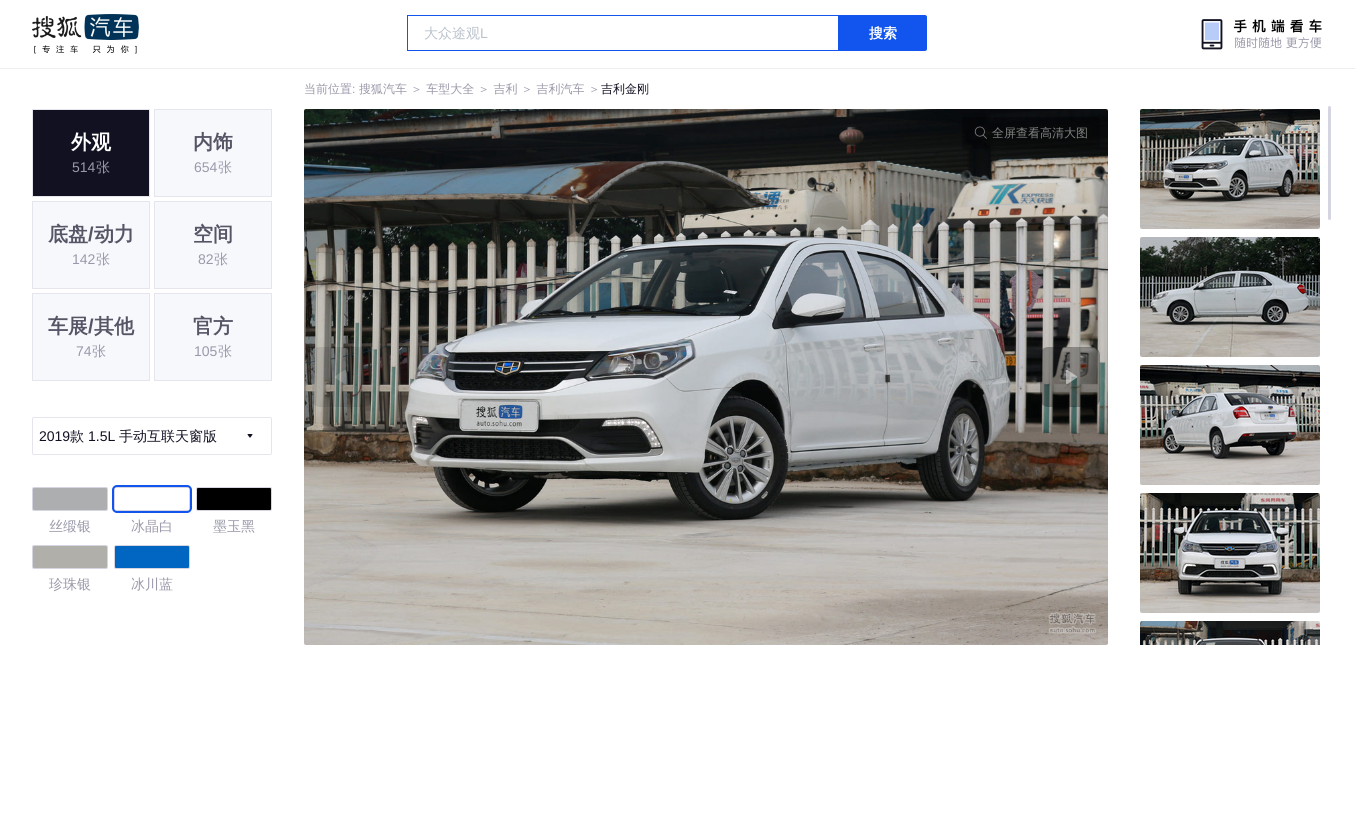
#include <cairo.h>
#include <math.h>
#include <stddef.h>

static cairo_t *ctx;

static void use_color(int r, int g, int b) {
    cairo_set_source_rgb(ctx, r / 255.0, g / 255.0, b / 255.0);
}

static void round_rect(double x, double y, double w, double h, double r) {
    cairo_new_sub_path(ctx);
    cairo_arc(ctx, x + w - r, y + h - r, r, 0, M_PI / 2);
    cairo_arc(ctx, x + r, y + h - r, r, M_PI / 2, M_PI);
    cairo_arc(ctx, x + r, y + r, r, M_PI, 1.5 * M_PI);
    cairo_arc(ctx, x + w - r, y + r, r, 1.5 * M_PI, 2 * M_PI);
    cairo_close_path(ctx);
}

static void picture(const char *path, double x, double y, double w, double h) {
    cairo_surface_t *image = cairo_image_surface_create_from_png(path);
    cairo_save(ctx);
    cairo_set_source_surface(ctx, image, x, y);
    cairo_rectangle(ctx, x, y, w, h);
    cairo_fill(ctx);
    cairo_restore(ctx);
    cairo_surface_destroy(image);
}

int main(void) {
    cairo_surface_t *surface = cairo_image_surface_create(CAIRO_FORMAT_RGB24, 1355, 829);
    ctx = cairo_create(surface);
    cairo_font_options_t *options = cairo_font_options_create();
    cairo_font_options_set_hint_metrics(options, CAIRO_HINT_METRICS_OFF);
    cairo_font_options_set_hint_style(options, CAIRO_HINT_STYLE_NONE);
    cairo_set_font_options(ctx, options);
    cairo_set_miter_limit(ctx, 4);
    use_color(255, 255, 255);
    cairo_paint(ctx);
    use_color(238, 238, 240);
    cairo_rectangle(ctx, 0, 68, 1355, 1);
    cairo_fill(ctx);
    picture("img1.png", 32, 14, 107, 40);
    cairo_rectangle(ctx, 407.5, 15.5, 431, 35);
    use_color(17, 85, 238);
    cairo_set_line_width(ctx, 1);
    cairo_stroke(ctx);
    cairo_select_font_face(ctx, "WenQuanYi Zen Hei Medium", CAIRO_FONT_SLANT_NORMAL, CAIRO_FONT_WEIGHT_NORMAL);
    cairo_set_font_size(ctx, 14);
    use_color(187, 194, 204);
    cairo_move_to(ctx, 424, 38);
    cairo_show_text(ctx, "大众途观");
    cairo_select_font_face(ctx, "Liberation Sans", CAIRO_FONT_SLANT_NORMAL, CAIRO_FONT_WEIGHT_NORMAL);
    cairo_move_to(ctx, 480, 38);
    cairo_show_text(ctx, "L");
    use_color(17, 85, 238);
    cairo_new_path(ctx);
    cairo_move_to(ctx, 839, 15);
    cairo_line_to(ctx, 925, 15);
    cairo_curve_to(ctx, 926, 15, 927, 16, 927, 17);
    cairo_line_to(ctx, 927, 49);
    cairo_curve_to(ctx, 927, 50, 926, 51, 925, 51);
    cairo_line_to(ctx, 839, 51);
    cairo_close_path(ctx);
    cairo_fill(ctx);
    cairo_select_font_face(ctx, "WenQuanYi Zen Hei", CAIRO_FONT_SLANT_NORMAL, CAIRO_FONT_WEIGHT_BOLD);
    use_color(255, 255, 255);
    cairo_move_to(ctx, 869, 38);
    cairo_show_text(ctx, "搜索");
    picture("img2.png", 1201, 19, 121, 31);
    cairo_select_font_face(ctx, "WenQuanYi Zen Hei Medium", CAIRO_FONT_SLANT_NORMAL, CAIRO_FONT_WEIGHT_NORMAL);
    cairo_set_font_size(ctx, 12);
    use_color(153, 153, 170);
    cairo_move_to(ctx, 304, 93);
    cairo_show_text(ctx, "当前位置");
    cairo_select_font_face(ctx, "Liberation Sans", CAIRO_FONT_SLANT_NORMAL, CAIRO_FONT_WEIGHT_NORMAL);
    cairo_move_to(ctx, 352, 93);
    cairo_show_text(ctx, ":");
    cairo_select_font_face(ctx, "WenQuanYi Zen Hei Medium", CAIRO_FONT_SLANT_NORMAL, CAIRO_FONT_WEIGHT_NORMAL);
    cairo_move_to(ctx, 359, 93);
    cairo_show_text(ctx, "搜狐汽车 ＞ 车型大全 ＞ 吉利 ＞ 吉利汽车 ＞");
    use_color(17, 17, 34);
    cairo_move_to(ctx, 601, 93);
    cairo_show_text(ctx, "吉利金刚");
    cairo_rectangle(ctx, 32.5, 109.5, 117, 87);
    cairo_fill_preserve(ctx);
    use_color(229, 229, 238);
    cairo_stroke(ctx);
    cairo_select_font_face(ctx, "WenQuanYi Zen Hei", CAIRO_FONT_SLANT_NORMAL, CAIRO_FONT_WEIGHT_BOLD);
    cairo_set_font_size(ctx, 20);
    use_color(255, 255, 255);
    cairo_move_to(ctx, 71, 149);
    cairo_show_text(ctx, "外观");
    cairo_select_font_face(ctx, "Liberation Sans", CAIRO_FONT_SLANT_NORMAL, CAIRO_FONT_WEIGHT_NORMAL);
    cairo_set_font_size(ctx, 14);
    use_color(153, 153, 170);
    cairo_move_to(ctx, 72, 172);
    cairo_show_text(ctx, "514");
    cairo_select_font_face(ctx, "WenQuanYi Zen Hei Medium", CAIRO_FONT_SLANT_NORMAL, CAIRO_FONT_WEIGHT_NORMAL);
    cairo_move_to(ctx, 96, 172);
    cairo_show_text(ctx, "张");
    use_color(247, 248, 252);
    cairo_rectangle(ctx, 154.5, 109.5, 117, 87);
    cairo_fill_preserve(ctx);
    use_color(229, 229, 238);
    cairo_stroke(ctx);
    cairo_select_font_face(ctx, "WenQuanYi Zen Hei", CAIRO_FONT_SLANT_NORMAL, CAIRO_FONT_WEIGHT_BOLD);
    cairo_set_font_size(ctx, 20);
    use_color(85, 85, 102);
    cairo_move_to(ctx, 193, 149);
    cairo_show_text(ctx, "内饰");
    cairo_select_font_face(ctx, "Liberation Sans", CAIRO_FONT_SLANT_NORMAL, CAIRO_FONT_WEIGHT_NORMAL);
    cairo_set_font_size(ctx, 14);
    use_color(153, 153, 170);
    cairo_move_to(ctx, 194, 172);
    cairo_show_text(ctx, "654");
    cairo_select_font_face(ctx, "WenQuanYi Zen Hei Medium", CAIRO_FONT_SLANT_NORMAL, CAIRO_FONT_WEIGHT_NORMAL);
    cairo_move_to(ctx, 218, 172);
    cairo_show_text(ctx, "张");
    use_color(247, 248, 252);
    cairo_rectangle(ctx, 32.5, 201.5, 117, 87);
    cairo_fill_preserve(ctx);
    use_color(229, 229, 238);
    cairo_stroke(ctx);
    cairo_select_font_face(ctx, "WenQuanYi Zen Hei", CAIRO_FONT_SLANT_NORMAL, CAIRO_FONT_WEIGHT_BOLD);
    cairo_set_font_size(ctx, 20);
    use_color(85, 85, 102);
    cairo_move_to(ctx, 48, 241);
    cairo_show_text(ctx, "底盘");
    cairo_select_font_face(ctx, "Liberation Sans", CAIRO_FONT_SLANT_NORMAL, CAIRO_FONT_WEIGHT_BOLD);
    cairo_move_to(ctx, 88, 241);
    cairo_show_text(ctx, "/");
    cairo_select_font_face(ctx, "WenQuanYi Zen Hei", CAIRO_FONT_SLANT_NORMAL, CAIRO_FONT_WEIGHT_BOLD);
    cairo_move_to(ctx, 94, 241);
    cairo_show_text(ctx, "动力");
    cairo_select_font_face(ctx, "Liberation Sans", CAIRO_FONT_SLANT_NORMAL, CAIRO_FONT_WEIGHT_NORMAL);
    cairo_set_font_size(ctx, 14);
    use_color(153, 153, 170);
    cairo_move_to(ctx, 72, 264);
    cairo_show_text(ctx, "142");
    cairo_select_font_face(ctx, "WenQuanYi Zen Hei Medium", CAIRO_FONT_SLANT_NORMAL, CAIRO_FONT_WEIGHT_NORMAL);
    cairo_move_to(ctx, 96, 264);
    cairo_show_text(ctx, "张");
    use_color(247, 248, 252);
    cairo_rectangle(ctx, 154.5, 201.5, 117, 87);
    cairo_fill_preserve(ctx);
    use_color(229, 229, 238);
    cairo_stroke(ctx);
    cairo_select_font_face(ctx, "WenQuanYi Zen Hei", CAIRO_FONT_SLANT_NORMAL, CAIRO_FONT_WEIGHT_BOLD);
    cairo_set_font_size(ctx, 20);
    use_color(85, 85, 102);
    cairo_move_to(ctx, 193, 241);
    cairo_show_text(ctx, "空间");
    cairo_select_font_face(ctx, "Liberation Sans", CAIRO_FONT_SLANT_NORMAL, CAIRO_FONT_WEIGHT_NORMAL);
    cairo_set_font_size(ctx, 14);
    use_color(153, 153, 170);
    cairo_move_to(ctx, 198, 264);
    cairo_show_text(ctx, "82");
    cairo_select_font_face(ctx, "WenQuanYi Zen Hei Medium", CAIRO_FONT_SLANT_NORMAL, CAIRO_FONT_WEIGHT_NORMAL);
    cairo_move_to(ctx, 214, 264);
    cairo_show_text(ctx, "张");
    use_color(247, 248, 252);
    cairo_rectangle(ctx, 32.5, 293.5, 117, 87);
    cairo_fill_preserve(ctx);
    use_color(229, 229, 238);
    cairo_stroke(ctx);
    cairo_select_font_face(ctx, "WenQuanYi Zen Hei", CAIRO_FONT_SLANT_NORMAL, CAIRO_FONT_WEIGHT_BOLD);
    cairo_set_font_size(ctx, 20);
    use_color(85, 85, 102);
    cairo_move_to(ctx, 48, 333);
    cairo_show_text(ctx, "车展");
    cairo_select_font_face(ctx, "Liberation Sans", CAIRO_FONT_SLANT_NORMAL, CAIRO_FONT_WEIGHT_BOLD);
    cairo_move_to(ctx, 88, 333);
    cairo_show_text(ctx, "/");
    cairo_select_font_face(ctx, "WenQuanYi Zen Hei", CAIRO_FONT_SLANT_NORMAL, CAIRO_FONT_WEIGHT_BOLD);
    cairo_move_to(ctx, 94, 333);
    cairo_show_text(ctx, "其他");
    cairo_select_font_face(ctx, "Liberation Sans", CAIRO_FONT_SLANT_NORMAL, CAIRO_FONT_WEIGHT_NORMAL);
    cairo_set_font_size(ctx, 14);
    use_color(153, 153, 170);
    cairo_move_to(ctx, 76, 356);
    cairo_show_text(ctx, "74");
    cairo_select_font_face(ctx, "WenQuanYi Zen Hei Medium", CAIRO_FONT_SLANT_NORMAL, CAIRO_FONT_WEIGHT_NORMAL);
    cairo_move_to(ctx, 92, 356);
    cairo_show_text(ctx, "张");
    use_color(247, 248, 252);
    cairo_rectangle(ctx, 154.5, 293.5, 117, 87);
    cairo_fill_preserve(ctx);
    use_color(229, 229, 238);
    cairo_stroke(ctx);
    cairo_select_font_face(ctx, "WenQuanYi Zen Hei", CAIRO_FONT_SLANT_NORMAL, CAIRO_FONT_WEIGHT_BOLD);
    cairo_set_font_size(ctx, 20);
    use_color(85, 85, 102);
    cairo_move_to(ctx, 193, 333);
    cairo_show_text(ctx, "官方");
    cairo_select_font_face(ctx, "Liberation Sans", CAIRO_FONT_SLANT_NORMAL, CAIRO_FONT_WEIGHT_NORMAL);
    cairo_set_font_size(ctx, 14);
    use_color(153, 153, 170);
    cairo_move_to(ctx, 194, 356);
    cairo_show_text(ctx, "105");
    cairo_select_font_face(ctx, "WenQuanYi Zen Hei Medium", CAIRO_FONT_SLANT_NORMAL, CAIRO_FONT_WEIGHT_NORMAL);
    cairo_move_to(ctx, 218, 356);
    cairo_show_text(ctx, "张");
    round_rect(32.5, 417.5, 239, 37, 1.5);
    use_color(229, 229, 238);
    cairo_stroke(ctx);
    cairo_select_font_face(ctx, "Liberation Sans", CAIRO_FONT_SLANT_NORMAL, CAIRO_FONT_WEIGHT_NORMAL);
    use_color(17, 17, 34);
    cairo_move_to(ctx, 39, 441);
    cairo_show_text(ctx, "2019");
    cairo_select_font_face(ctx, "WenQuanYi Zen Hei Medium", CAIRO_FONT_SLANT_NORMAL, CAIRO_FONT_WEIGHT_NORMAL);
    cairo_move_to(ctx, 70, 441);
    cairo_show_text(ctx, "款");
    cairo_select_font_face(ctx, "Liberation Sans", CAIRO_FONT_SLANT_NORMAL, CAIRO_FONT_WEIGHT_NORMAL);
    cairo_move_to(ctx, 88, 441);
    cairo_show_text(ctx, "1.5L");
    cairo_select_font_face(ctx, "WenQuanYi Zen Hei Medium", CAIRO_FONT_SLANT_NORMAL, CAIRO_FONT_WEIGHT_NORMAL);
    cairo_move_to(ctx, 119, 441);
    cairo_show_text(ctx, "手动互联天窗版");
    picture("img3.png", 247, 434, 6, 4);
    round_rect(32.5, 487.5, 75, 23, 1.5);
    use_color(213, 213, 226);
    cairo_stroke(ctx);
    use_color(173, 174, 176);
    round_rect(33, 488, 74, 22, 1);
    cairo_fill(ctx);
    use_color(153, 153, 170);
    cairo_move_to(ctx, 49, 531);
    cairo_show_text(ctx, "丝缎银");
    round_rect(114.5, 487.5, 75, 23, 1.5);
    use_color(213, 213, 226);
    cairo_stroke(ctx);
    use_color(255, 255, 255);
    round_rect(115, 488, 74, 22, 1);
    cairo_fill(ctx);
    round_rect(113, 486, 78, 26, 4);
    use_color(17, 85, 238);
    cairo_set_line_width(ctx, 2);
    cairo_stroke(ctx);
    use_color(153, 153, 170);
    cairo_move_to(ctx, 131, 531);
    cairo_show_text(ctx, "冰晶白");
    round_rect(196.5, 487.5, 75, 23, 1.5);
    use_color(213, 213, 226);
    cairo_set_line_width(ctx, 1);
    cairo_stroke(ctx);
    use_color(0, 0, 0);
    round_rect(197, 488, 74, 22, 1);
    cairo_fill(ctx);
    use_color(153, 153, 170);
    cairo_move_to(ctx, 213, 531);
    cairo_show_text(ctx, "墨玉黑");
    round_rect(32.5, 545.5, 75, 23, 1.5);
    use_color(213, 213, 226);
    cairo_stroke(ctx);
    use_color(176, 175, 170);
    round_rect(33, 546, 74, 22, 1);
    cairo_fill(ctx);
    use_color(153, 153, 170);
    cairo_move_to(ctx, 49, 589);
    cairo_show_text(ctx, "珍珠银");
    round_rect(114.5, 545.5, 75, 23, 1.5);
    use_color(213, 213, 226);
    cairo_stroke(ctx);
    use_color(0, 102, 193);
    round_rect(115, 546, 74, 22, 1);
    cairo_fill(ctx);
    use_color(153, 153, 170);
    cairo_move_to(ctx, 131, 589);
    cairo_show_text(ctx, "冰川蓝");
    picture("img4.png", 304, 109, 804, 536);
    cairo_set_source_rgba(ctx, 0, 0, 0, 0.3);
    round_rect(962, 117, 138, 32, 2);
    cairo_fill(ctx);
    picture("img5.png", 974, 126, 13, 13);
    cairo_set_font_size(ctx, 12);
    use_color(131, 132, 132);
    cairo_move_to(ctx, 992, 137);
    cairo_show_text(ctx, "全屏查看高清大图");
    cairo_set_source_rgba(ctx, 0, 0, 0, 0.1);
    round_rect(312, 347, 60, 60, 8);
    cairo_fill(ctx);
    picture("img6.png", 335, 370, 11, 14);
    cairo_set_source_rgba(ctx, 0, 0, 0, 0.3);
    round_rect(1040, 347, 60, 60, 8);
    cairo_fill(ctx);
    picture("img7.png", 1066, 369, 12, 15);
    picture("img8.png", 1140, 109, 180, 120);
    picture("img9.png", 1140, 237, 180, 120);
    picture("img10.png", 1140, 365, 180, 120);
    picture("img11.png", 1140, 493, 180, 120);
    picture("img12.png", 1140, 621, 180, 24);
    use_color(213, 213, 226);
    round_rect(1328, 106, 3, 114, 1.5);
    cairo_fill(ctx);
    cairo_surface_write_to_png(surface, "result.png");
    cairo_font_options_destroy(options);
    cairo_destroy(ctx);
    cairo_surface_destroy(surface);
    return 0;
}
